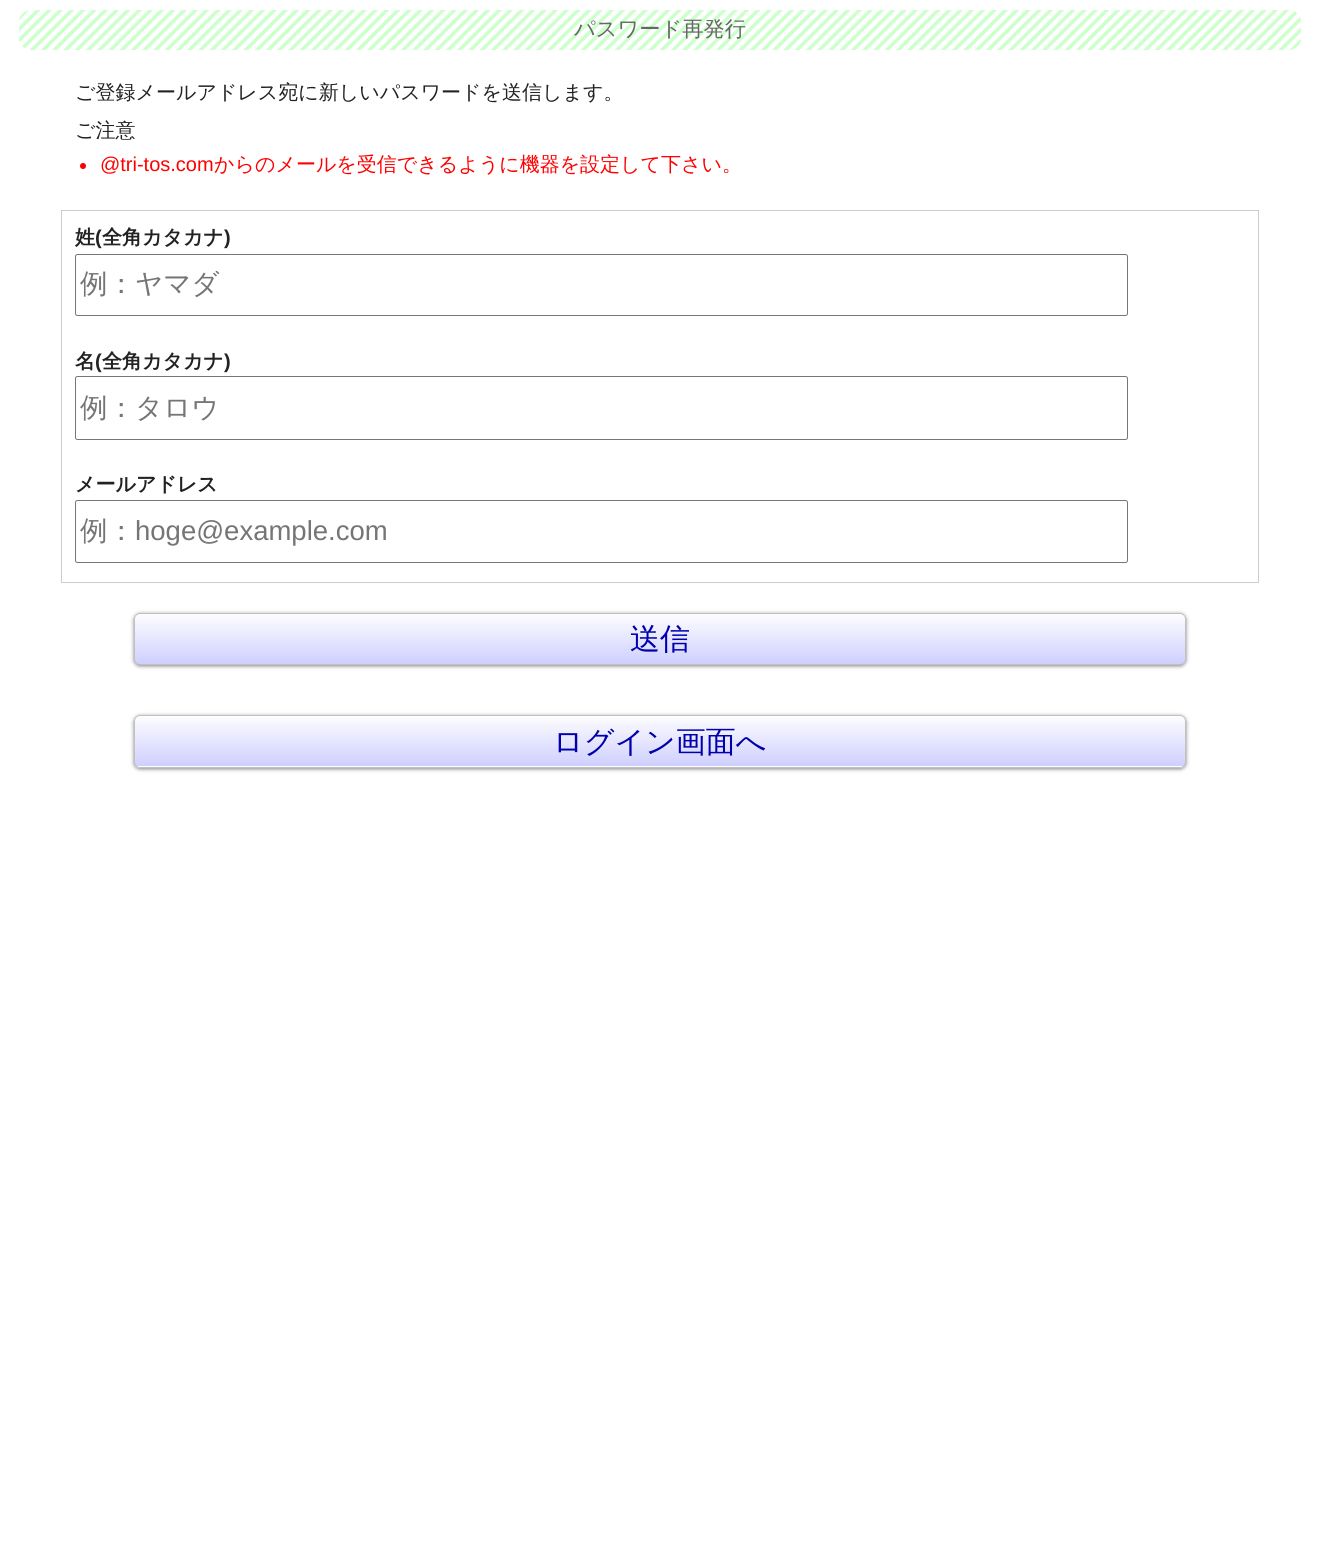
#include <cairo.h>
#include <math.h>
#include <stddef.h>

static cairo_t *ctx;

static void use_color(int r, int g, int b) {
    cairo_set_source_rgb(ctx, r / 255.0, g / 255.0, b / 255.0);
}

static void round_rect(double x, double y, double w, double h, double r) {
    cairo_new_sub_path(ctx);
    cairo_arc(ctx, x + w - r, y + h - r, r, 0, M_PI / 2);
    cairo_arc(ctx, x + r, y + h - r, r, M_PI / 2, M_PI);
    cairo_arc(ctx, x + r, y + r, r, M_PI, 1.5 * M_PI);
    cairo_arc(ctx, x + w - r, y + r, r, 1.5 * M_PI, 2 * M_PI);
    cairo_close_path(ctx);
}

static void shadow(double x, double y, double w, double h, double r, double blur, double alpha) {
    cairo_push_group_with_content(ctx, CAIRO_CONTENT_ALPHA);
    cairo_set_operator(ctx, CAIRO_OPERATOR_SOURCE);
    for (int i = 15; i >= -15 && fmin(w, h) + blur * i / 3 > 0; i -= 2) {
        double e = blur * i / 6;
        cairo_set_source_rgba(ctx, 0, 0, 0, alpha * erfc((i - 1) / 8.5) / 2);
        round_rect(x - e, y - e, w + 2 * e, h + 2 * e, fmax(0, fmin(r + e + blur * .6, fmin(w, h) / 2 + e)));
        cairo_fill(ctx);
    }
    cairo_pattern_t *soft = cairo_pop_group(ctx);
    cairo_mask(ctx, soft);
    cairo_pattern_destroy(soft);
}

static void picture(const char *path, double x, double y, double w, double h) {
    cairo_surface_t *image = cairo_image_surface_create_from_png(path);
    cairo_save(ctx);
    cairo_set_source_surface(ctx, image, x, y);
    cairo_rectangle(ctx, x, y, w, h);
    cairo_fill(ctx);
    cairo_restore(ctx);
    cairo_surface_destroy(image);
}

int main(void) {
    cairo_surface_t *surface = cairo_image_surface_create(CAIRO_FORMAT_RGB24, 1319, 1563);
    ctx = cairo_create(surface);
    cairo_font_options_t *options = cairo_font_options_create();
    cairo_font_options_set_hint_metrics(options, CAIRO_HINT_METRICS_OFF);
    cairo_font_options_set_hint_style(options, CAIRO_HINT_STYLE_NONE);
    cairo_set_font_options(ctx, options);
    cairo_set_miter_limit(ctx, 4);
    cairo_pattern_t *gradient;
    use_color(255, 255, 255);
    cairo_paint(ctx);
    picture("img1.png", 19, 10, 1282, 40);
    cairo_select_font_face(ctx, "WenQuanYi Zen Hei Medium", CAIRO_FONT_SLANT_NORMAL, CAIRO_FONT_WEIGHT_NORMAL);
    cairo_set_font_size(ctx, 21.25);
    use_color(102, 102, 102);
    cairo_move_to(ctx, 574, 36);
    cairo_show_text(ctx, "パスワード再発行");
    cairo_set_font_size(ctx, 20);
    use_color(34, 34, 34);
    cairo_move_to(ctx, 75, 99);
    cairo_show_text(ctx, "ご登録メールアドレス宛に新しいパスワードを送信します。");
    cairo_move_to(ctx, 75, 137);
    cairo_show_text(ctx, "ご注意");
    use_color(255, 0, 0);
    cairo_new_path(ctx);
    cairo_arc(ctx, 83, 166, 3, 0, 2 * M_PI);
    cairo_fill(ctx);
    cairo_select_font_face(ctx, "Liberation Sans", CAIRO_FONT_SLANT_NORMAL, CAIRO_FONT_WEIGHT_NORMAL);
    cairo_move_to(ctx, 100, 171);
    cairo_show_text(ctx, "@tri-tos.com");
    cairo_select_font_face(ctx, "WenQuanYi Zen Hei Medium", CAIRO_FONT_SLANT_NORMAL, CAIRO_FONT_WEIGHT_NORMAL);
    cairo_move_to(ctx, 214, 171);
    cairo_show_text(ctx, "からのメールを受信できるように機器を設定して下さい。");
    cairo_rectangle(ctx, 61.5, 210.5, 1197, 372);
    use_color(204, 204, 204);
    cairo_set_line_width(ctx, 1);
    cairo_stroke(ctx);
    cairo_select_font_face(ctx, "WenQuanYi Zen Hei", CAIRO_FONT_SLANT_NORMAL, CAIRO_FONT_WEIGHT_BOLD);
    use_color(34, 34, 34);
    cairo_move_to(ctx, 75, 244);
    cairo_show_text(ctx, "姓");
    cairo_select_font_face(ctx, "Liberation Sans", CAIRO_FONT_SLANT_NORMAL, CAIRO_FONT_WEIGHT_BOLD);
    cairo_move_to(ctx, 95, 244);
    cairo_show_text(ctx, "(");
    cairo_select_font_face(ctx, "WenQuanYi Zen Hei", CAIRO_FONT_SLANT_NORMAL, CAIRO_FONT_WEIGHT_BOLD);
    cairo_move_to(ctx, 102, 244);
    cairo_show_text(ctx, "全角カタカナ");
    cairo_select_font_face(ctx, "Liberation Sans", CAIRO_FONT_SLANT_NORMAL, CAIRO_FONT_WEIGHT_BOLD);
    cairo_move_to(ctx, 224, 244);
    cairo_show_text(ctx, ")");
    round_rect(75.5, 254.5, 1052, 61, 2);
    use_color(118, 118, 118);
    cairo_stroke(ctx);
    cairo_select_font_face(ctx, "WenQuanYi Zen Hei Medium", CAIRO_FONT_SLANT_NORMAL, CAIRO_FONT_WEIGHT_NORMAL);
    cairo_set_font_size(ctx, 27.5);
    use_color(117, 117, 117);
    cairo_move_to(ctx, 80, 293);
    cairo_show_text(ctx, "例：ヤマダ");
    cairo_select_font_face(ctx, "WenQuanYi Zen Hei", CAIRO_FONT_SLANT_NORMAL, CAIRO_FONT_WEIGHT_BOLD);
    cairo_set_font_size(ctx, 20);
    use_color(34, 34, 34);
    cairo_move_to(ctx, 75, 368);
    cairo_show_text(ctx, "名");
    cairo_select_font_face(ctx, "Liberation Sans", CAIRO_FONT_SLANT_NORMAL, CAIRO_FONT_WEIGHT_BOLD);
    cairo_move_to(ctx, 95, 368);
    cairo_show_text(ctx, "(");
    cairo_select_font_face(ctx, "WenQuanYi Zen Hei", CAIRO_FONT_SLANT_NORMAL, CAIRO_FONT_WEIGHT_BOLD);
    cairo_move_to(ctx, 102, 368);
    cairo_show_text(ctx, "全角カタカナ");
    cairo_select_font_face(ctx, "Liberation Sans", CAIRO_FONT_SLANT_NORMAL, CAIRO_FONT_WEIGHT_BOLD);
    cairo_move_to(ctx, 224, 368);
    cairo_show_text(ctx, ")");
    round_rect(75.5, 376.5, 1052, 63, 2);
    use_color(118, 118, 118);
    cairo_stroke(ctx);
    cairo_select_font_face(ctx, "WenQuanYi Zen Hei Medium", CAIRO_FONT_SLANT_NORMAL, CAIRO_FONT_WEIGHT_NORMAL);
    cairo_set_font_size(ctx, 27.5);
    use_color(117, 117, 117);
    cairo_move_to(ctx, 80, 417);
    cairo_show_text(ctx, "例：タロウ");
    cairo_select_font_face(ctx, "WenQuanYi Zen Hei", CAIRO_FONT_SLANT_NORMAL, CAIRO_FONT_WEIGHT_BOLD);
    cairo_set_font_size(ctx, 20);
    use_color(34, 34, 34);
    cairo_move_to(ctx, 75, 491);
    cairo_show_text(ctx, "メールアドレス");
    round_rect(75.5, 500.5, 1052, 62, 2);
    use_color(118, 118, 118);
    cairo_stroke(ctx);
    cairo_select_font_face(ctx, "WenQuanYi Zen Hei Medium", CAIRO_FONT_SLANT_NORMAL, CAIRO_FONT_WEIGHT_NORMAL);
    cairo_set_font_size(ctx, 27.5);
    use_color(117, 117, 117);
    cairo_move_to(ctx, 80, 540);
    cairo_show_text(ctx, "例：");
    cairo_select_font_face(ctx, "Liberation Sans", CAIRO_FONT_SLANT_NORMAL, CAIRO_FONT_WEIGHT_NORMAL);
    cairo_move_to(ctx, 135, 540);
    cairo_show_text(ctx, "hoge@example.com");
    use_color(0, 0, 0);
    shadow(134, 614, 1052, 52, 6, 2, 0.5);
    cairo_save(ctx);
    round_rect(134, 613, 1052, 52, 6);
    cairo_clip(ctx);
    gradient = cairo_pattern_create_linear(135, 614, 135, 664);
    cairo_pattern_add_color_stop_rgba(gradient, 0, 0.992, 0.992, 1, 1);
    cairo_pattern_add_color_stop_rgba(gradient, 1, 0.812, 0.812, 1, 1);
    cairo_set_source(ctx, gradient);
    cairo_pattern_destroy(gradient);
    cairo_rectangle(ctx, 134, 614, 1052, 50);
    cairo_fill(ctx);
    cairo_restore(ctx);
    round_rect(134.5, 613.5, 1051, 51, 5.5);
    use_color(192, 192, 192);
    cairo_stroke(ctx);
    cairo_select_font_face(ctx, "WenQuanYi Zen Hei Medium", CAIRO_FONT_SLANT_NORMAL, CAIRO_FONT_WEIGHT_NORMAL);
    cairo_set_font_size(ctx, 30);
    use_color(0, 0, 174);
    cairo_move_to(ctx, 630, 649);
    cairo_show_text(ctx, "送信");
    use_color(0, 0, 0);
    shadow(134, 716, 1052, 53, 6, 2, 0.5);
    cairo_save(ctx);
    round_rect(134, 715, 1052, 53, 6);
    cairo_clip(ctx);
    gradient = cairo_pattern_create_linear(135, 716, 135, 766);
    cairo_pattern_add_color_stop_rgba(gradient, 0, 0.992, 0.992, 1, 1);
    cairo_pattern_add_color_stop_rgba(gradient, 1, 0.812, 0.812, 1, 1);
    cairo_set_source(ctx, gradient);
    cairo_pattern_destroy(gradient);
    cairo_rectangle(ctx, 134, 716, 1052, 50);
    cairo_fill(ctx);
    gradient = cairo_pattern_create_linear(135, 766, 135, 816);
    cairo_pattern_add_color_stop_rgba(gradient, 0, 0.992, 0.992, 1, 1);
    cairo_pattern_add_color_stop_rgba(gradient, 1, 0.812, 0.812, 1, 1);
    cairo_set_source(ctx, gradient);
    cairo_pattern_destroy(gradient);
    cairo_rectangle(ctx, 134, 766, 1052, 2);
    cairo_fill(ctx);
    cairo_restore(ctx);
    round_rect(134.5, 715.5, 1051, 52, 5.5);
    use_color(192, 192, 192);
    cairo_stroke(ctx);
    use_color(0, 0, 174);
    cairo_move_to(ctx, 553, 752);
    cairo_show_text(ctx, "ログイン画面へ");
    cairo_surface_write_to_png(surface, "result.png");
    cairo_font_options_destroy(options);
    cairo_destroy(ctx);
    cairo_surface_destroy(surface);
    return 0;
}
